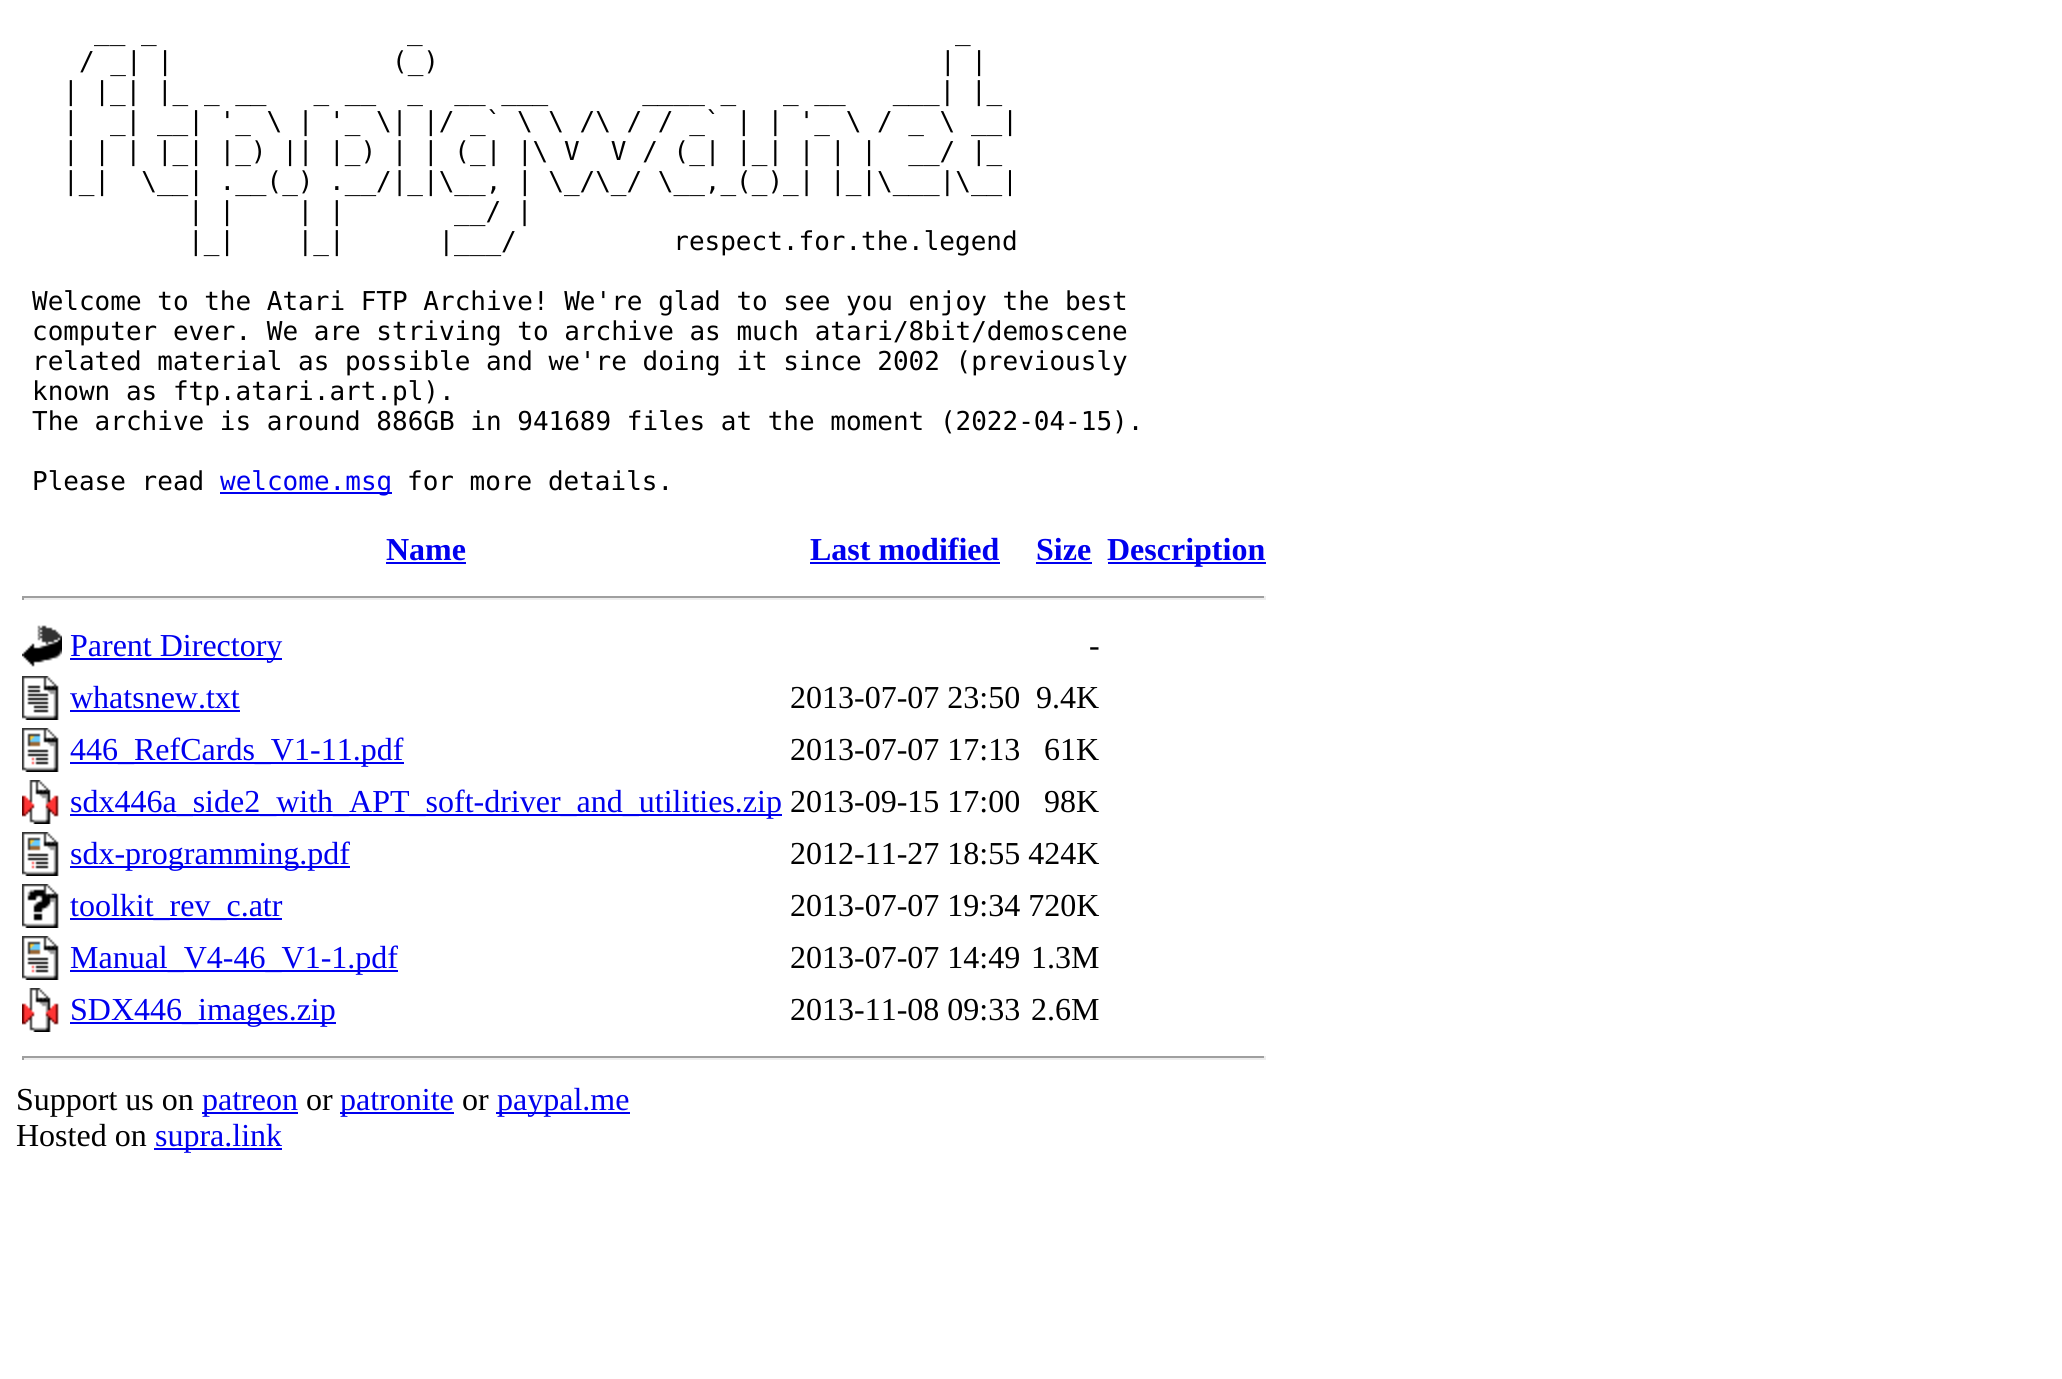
#include <cairo.h>
#include <math.h>
#include <stddef.h>

static cairo_t *ctx;

static void use_color(int r, int g, int b) {
    cairo_set_source_rgb(ctx, r / 255.0, g / 255.0, b / 255.0);
}

static void picture(const char *path, double x, double y, double w, double h) {
    cairo_surface_t *image = cairo_image_surface_create_from_png(path);
    cairo_save(ctx);
    cairo_set_source_surface(ctx, image, x, y);
    cairo_rectangle(ctx, x, y, w, h);
    cairo_fill(ctx);
    cairo_restore(ctx);
    cairo_surface_destroy(image);
}

int main(void) {
    cairo_surface_t *surface = cairo_image_surface_create(CAIRO_FORMAT_RGB24, 2062, 1379);
    ctx = cairo_create(surface);
    cairo_font_options_t *options = cairo_font_options_create();
    cairo_font_options_set_hint_metrics(options, CAIRO_HINT_METRICS_OFF);
    cairo_font_options_set_hint_style(options, CAIRO_HINT_STYLE_NONE);
    cairo_set_font_options(ctx, options);
    cairo_set_miter_limit(ctx, 4);
    use_color(255, 255, 255);
    cairo_paint(ctx);
    cairo_select_font_face(ctx, "DejaVu Sans Mono", CAIRO_FONT_SLANT_NORMAL, CAIRO_FONT_WEIGHT_NORMAL);
    cairo_set_font_size(ctx, 26);
    use_color(0, 0, 0);
    cairo_move_to(ctx, 94, 40);
    cairo_show_text(ctx, "__ _                _                                  _");
    cairo_move_to(ctx, 79, 70);
    cairo_show_text(ctx, "/ _| |              (_)                                | |");
    cairo_move_to(ctx, 63, 100);
    cairo_show_text(ctx, "| |_| |_ _ __   _ __  _  __ ___      ____ _   _ __   ___| |_");
    cairo_move_to(ctx, 63, 130);
    cairo_show_text(ctx, "|  _| __| '_ \\ | '_ \\| |/ _` \\ \\ /\\ / / _` | | '_ \\ / _ \\ __|");
    cairo_move_to(ctx, 63, 160);
    cairo_show_text(ctx, "| | | |_| |_) || |_) | | (_| |\\ V  V / (_| |_| | | |  __/ |_");
    cairo_move_to(ctx, 63, 190);
    cairo_show_text(ctx, "|_|  \\__| .__(_) .__/|_|\\__, | \\_/\\_/ \\__,_(_)_| |_|\\___|\\__|");
    cairo_move_to(ctx, 188, 220);
    cairo_show_text(ctx, "| |    | |       __/ |");
    cairo_move_to(ctx, 188, 250);
    cairo_show_text(ctx, "|_|    |_|      |___/          respect.for.the.legend");
    cairo_move_to(ctx, 32, 310);
    cairo_show_text(ctx, "Welcome to the Atari FTP Archive! We're glad to see you enjoy the best");
    cairo_move_to(ctx, 32, 340);
    cairo_show_text(ctx, "computer ever. We are striving to archive as much atari/8bit/demoscene");
    cairo_move_to(ctx, 32, 370);
    cairo_show_text(ctx, "related material as possible and we're doing it since 2002 (previously");
    cairo_move_to(ctx, 32, 400);
    cairo_show_text(ctx, "known as ftp.atari.art.pl).");
    cairo_move_to(ctx, 32, 430);
    cairo_show_text(ctx, "The archive is around 886GB in 941689 files at the moment (2022-04-15).");
    cairo_move_to(ctx, 32, 490);
    cairo_show_text(ctx, "Please read");
    use_color(0, 0, 238);
    cairo_rectangle(ctx, 220, 492, 172, 2);
    cairo_fill(ctx);
    cairo_move_to(ctx, 220, 490);
    cairo_show_text(ctx, "welcome.msg");
    use_color(0, 0, 0);
    cairo_move_to(ctx, 407, 490);
    cairo_show_text(ctx, "for more details.");
    cairo_select_font_face(ctx, "Liberation Serif", CAIRO_FONT_SLANT_NORMAL, CAIRO_FONT_WEIGHT_BOLD);
    cairo_set_font_size(ctx, 32);
    use_color(0, 0, 238);
    cairo_move_to(ctx, 386, 560);
    cairo_show_text(ctx, "Name");
    cairo_rectangle(ctx, 386, 562, 80, 2);
    cairo_fill(ctx);
    cairo_move_to(ctx, 810, 560);
    cairo_show_text(ctx, "Last modified");
    cairo_rectangle(ctx, 810, 562, 190, 2);
    cairo_fill(ctx);
    cairo_move_to(ctx, 1036, 560);
    cairo_show_text(ctx, "Size");
    cairo_rectangle(ctx, 1036, 562, 56, 2);
    cairo_fill(ctx);
    cairo_rectangle(ctx, 1108, 562, 158, 2);
    cairo_fill(ctx);
    cairo_move_to(ctx, 1107, 560);
    cairo_show_text(ctx, "Description");
    use_color(159, 159, 159);
    cairo_rectangle(ctx, 22, 596, 1244, 2);
    cairo_fill(ctx);
    use_color(238, 238, 238);
    cairo_rectangle(ctx, 1264, 596, 2, 4);
    cairo_fill(ctx);
    cairo_rectangle(ctx, 22, 598, 1244, 2);
    cairo_fill(ctx);
    use_color(159, 159, 159);
    cairo_rectangle(ctx, 22, 596, 2, 4);
    cairo_fill(ctx);
    picture("img1.png", 22, 625, 40, 42);
    use_color(0, 0, 238);
    cairo_rectangle(ctx, 70, 658, 212, 2);
    cairo_fill(ctx);
    cairo_select_font_face(ctx, "Liberation Serif", CAIRO_FONT_SLANT_NORMAL, CAIRO_FONT_WEIGHT_NORMAL);
    cairo_move_to(ctx, 70, 656);
    cairo_show_text(ctx, "Parent Directory");
    use_color(0, 0, 0);
    cairo_move_to(ctx, 1089, 656);
    cairo_show_text(ctx, "-");
    picture("img2.png", 22, 676, 37, 44);
    use_color(0, 0, 238);
    cairo_move_to(ctx, 70, 708);
    cairo_show_text(ctx, "whatsnew.txt");
    cairo_rectangle(ctx, 70, 710, 170, 2);
    cairo_fill(ctx);
    use_color(0, 0, 0);
    cairo_move_to(ctx, 790, 708);
    cairo_show_text(ctx, "2013-07-07 23:50");
    cairo_move_to(ctx, 1036, 708);
    cairo_show_text(ctx, "9.4K");
    picture("img3.png", 22, 728, 37, 44);
    use_color(0, 0, 238);
    cairo_rectangle(ctx, 70, 762, 334, 2);
    cairo_fill(ctx);
    cairo_move_to(ctx, 70, 760);
    cairo_show_text(ctx, "446_RefCards_V1-11.pdf");
    use_color(0, 0, 0);
    cairo_move_to(ctx, 790, 760);
    cairo_show_text(ctx, "2013-07-07 17:13");
    cairo_move_to(ctx, 1044, 760);
    cairo_show_text(ctx, "61K");
    picture("img4.png", 22, 780, 37, 44);
    use_color(0, 0, 238);
    cairo_rectangle(ctx, 70, 814, 712, 2);
    cairo_fill(ctx);
    cairo_move_to(ctx, 70, 812);
    cairo_show_text(ctx, "sdx446a_side2_with_APT_soft-driver_and_utilities.zip");
    use_color(0, 0, 0);
    cairo_move_to(ctx, 790, 812);
    cairo_show_text(ctx, "2013-09-15 17:00");
    cairo_move_to(ctx, 1044, 812);
    cairo_show_text(ctx, "98K");
    picture("img3.png", 22, 832, 37, 44);
    use_color(0, 0, 238);
    cairo_rectangle(ctx, 70, 866, 280, 2);
    cairo_fill(ctx);
    cairo_move_to(ctx, 70, 864);
    cairo_show_text(ctx, "sdx-programming.pdf");
    use_color(0, 0, 0);
    cairo_move_to(ctx, 790, 864);
    cairo_show_text(ctx, "2012-11-27 18:55 424K");
    picture("img5.png", 22, 884, 37, 44);
    use_color(0, 0, 238);
    cairo_rectangle(ctx, 70, 918, 212, 2);
    cairo_fill(ctx);
    cairo_move_to(ctx, 70, 916);
    cairo_show_text(ctx, "toolkit_rev_c.atr");
    use_color(0, 0, 0);
    cairo_move_to(ctx, 790, 916);
    cairo_show_text(ctx, "2013-07-07 19:34 720K");
    picture("img3.png", 22, 936, 37, 44);
    use_color(0, 0, 238);
    cairo_rectangle(ctx, 70, 970, 328, 2);
    cairo_fill(ctx);
    cairo_move_to(ctx, 70, 968);
    cairo_show_text(ctx, "Manual_V4-46_V1-1.pdf");
    use_color(0, 0, 0);
    cairo_move_to(ctx, 790, 968);
    cairo_show_text(ctx, "2013-07-07 14:49");
    cairo_move_to(ctx, 1031, 968);
    cairo_show_text(ctx, "1.3M");
    picture("img4.png", 22, 988, 37, 44);
    use_color(0, 0, 238);
    cairo_rectangle(ctx, 70, 1022, 266, 2);
    cairo_fill(ctx);
    cairo_move_to(ctx, 70, 1020);
    cairo_show_text(ctx, "SDX446_images.zip");
    use_color(0, 0, 0);
    cairo_move_to(ctx, 790, 1020);
    cairo_show_text(ctx, "2013-11-08 09:33");
    cairo_move_to(ctx, 1031, 1020);
    cairo_show_text(ctx, "2.6M");
    use_color(159, 159, 159);
    cairo_rectangle(ctx, 22, 1056, 1244, 2);
    cairo_fill(ctx);
    use_color(238, 238, 238);
    cairo_rectangle(ctx, 1264, 1056, 2, 4);
    cairo_fill(ctx);
    cairo_rectangle(ctx, 22, 1058, 1244, 2);
    cairo_fill(ctx);
    use_color(159, 159, 159);
    cairo_rectangle(ctx, 22, 1056, 2, 4);
    cairo_fill(ctx);
    use_color(0, 0, 0);
    cairo_move_to(ctx, 16, 1110);
    cairo_show_text(ctx, "Support us on");
    use_color(0, 0, 238);
    cairo_rectangle(ctx, 202, 1112, 96, 2);
    cairo_fill(ctx);
    cairo_move_to(ctx, 202, 1110);
    cairo_show_text(ctx, "patreon");
    use_color(0, 0, 0);
    cairo_move_to(ctx, 306, 1110);
    cairo_show_text(ctx, "or");
    use_color(0, 0, 238);
    cairo_rectangle(ctx, 340, 1112, 114, 2);
    cairo_fill(ctx);
    cairo_move_to(ctx, 340, 1110);
    cairo_show_text(ctx, "patronite");
    use_color(0, 0, 0);
    cairo_move_to(ctx, 462, 1110);
    cairo_show_text(ctx, "or");
    use_color(0, 0, 238);
    cairo_rectangle(ctx, 496, 1112, 134, 2);
    cairo_fill(ctx);
    cairo_move_to(ctx, 497, 1110);
    cairo_show_text(ctx, "paypal.me");
    use_color(0, 0, 0);
    cairo_move_to(ctx, 16, 1146);
    cairo_show_text(ctx, "Hosted on");
    use_color(0, 0, 238);
    cairo_rectangle(ctx, 154, 1148, 128, 2);
    cairo_fill(ctx);
    cairo_move_to(ctx, 155, 1146);
    cairo_show_text(ctx, "supra.link");
    cairo_surface_write_to_png(surface, "result.png");
    cairo_font_options_destroy(options);
    cairo_destroy(ctx);
    cairo_surface_destroy(surface);
    return 0;
}
